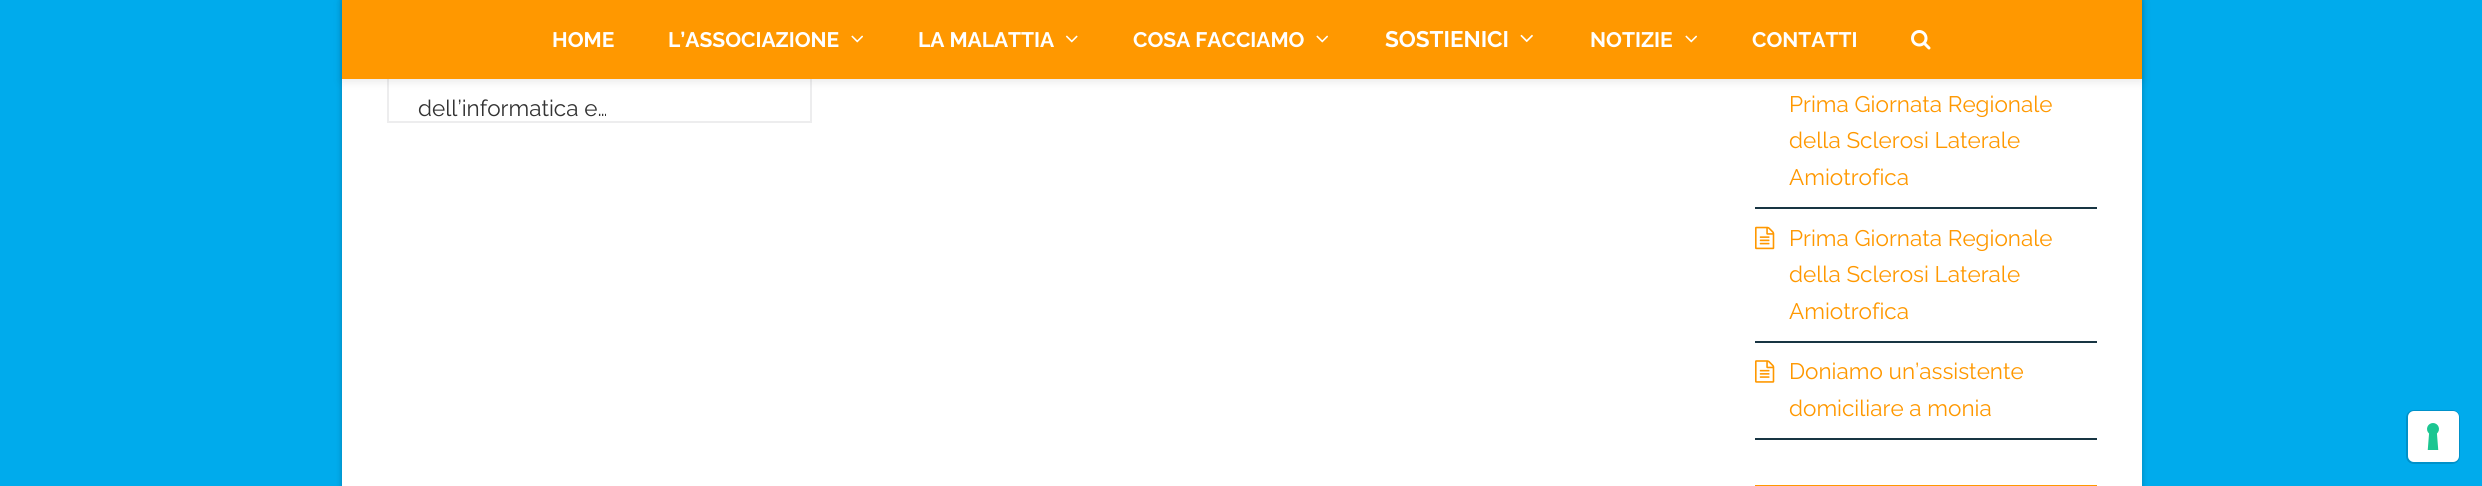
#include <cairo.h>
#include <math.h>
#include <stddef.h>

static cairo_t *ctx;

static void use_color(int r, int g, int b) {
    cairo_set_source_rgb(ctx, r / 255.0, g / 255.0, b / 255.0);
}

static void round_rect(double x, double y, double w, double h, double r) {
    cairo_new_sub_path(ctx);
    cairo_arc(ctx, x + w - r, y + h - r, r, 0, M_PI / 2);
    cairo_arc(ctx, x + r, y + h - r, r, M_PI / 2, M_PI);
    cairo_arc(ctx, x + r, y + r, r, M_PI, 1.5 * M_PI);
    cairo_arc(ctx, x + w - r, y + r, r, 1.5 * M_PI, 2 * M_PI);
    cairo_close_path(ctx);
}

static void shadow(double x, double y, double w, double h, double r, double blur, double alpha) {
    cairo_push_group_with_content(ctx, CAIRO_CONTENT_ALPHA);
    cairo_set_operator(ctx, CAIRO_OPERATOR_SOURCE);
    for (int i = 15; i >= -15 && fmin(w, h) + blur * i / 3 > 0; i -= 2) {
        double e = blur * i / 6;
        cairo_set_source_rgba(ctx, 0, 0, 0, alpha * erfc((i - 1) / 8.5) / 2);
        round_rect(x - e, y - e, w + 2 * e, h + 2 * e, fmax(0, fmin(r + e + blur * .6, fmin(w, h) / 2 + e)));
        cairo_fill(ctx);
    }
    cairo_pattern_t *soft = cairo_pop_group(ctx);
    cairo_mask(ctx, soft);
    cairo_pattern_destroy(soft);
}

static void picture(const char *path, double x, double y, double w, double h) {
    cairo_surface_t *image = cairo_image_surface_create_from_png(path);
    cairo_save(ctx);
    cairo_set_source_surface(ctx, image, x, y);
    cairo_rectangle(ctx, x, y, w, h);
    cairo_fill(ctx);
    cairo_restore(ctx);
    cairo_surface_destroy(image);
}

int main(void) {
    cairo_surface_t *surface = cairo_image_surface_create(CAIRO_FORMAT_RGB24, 2482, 486);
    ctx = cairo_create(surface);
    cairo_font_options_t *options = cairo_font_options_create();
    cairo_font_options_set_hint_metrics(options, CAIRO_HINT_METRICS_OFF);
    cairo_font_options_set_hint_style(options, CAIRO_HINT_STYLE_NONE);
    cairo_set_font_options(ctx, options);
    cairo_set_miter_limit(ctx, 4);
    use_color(0, 171, 236);
    cairo_paint(ctx);
    use_color(0, 0, 0);
    shadow(342, -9, 1800, 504, 0, 3, 0.25);
    use_color(255, 255, 255);
    cairo_rectangle(ctx, 342, 79, 1800, 407);
    cairo_fill(ctx);
    cairo_rectangle(ctx, 388, -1, 423, 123);
    use_color(237, 237, 238);
    cairo_stroke(ctx);
    use_color(0, 0, 0);
    shadow(342, 3, 1800, 78, 0, 5, 0.1);
    use_color(255, 152, 0);
    cairo_rectangle(ctx, 342, 0, 1800, 79);
    cairo_fill(ctx);
    cairo_select_font_face(ctx, "Raleway", CAIRO_FONT_SLANT_NORMAL, CAIRO_FONT_WEIGHT_BOLD);
    cairo_set_font_size(ctx, 21);
    use_color(255, 255, 255);
    cairo_move_to(ctx, 552, 47);
    cairo_show_text(ctx, "HOME");
    cairo_move_to(ctx, 668, 47);
    cairo_show_text(ctx, "L’ASSOCIAZIONE");
    picture("img1.png", 851, 35, 12, 8);
    cairo_move_to(ctx, 918, 47);
    cairo_show_text(ctx, "LA MALATTIA");
    picture("img2.png", 1065, 35, 13, 8);
    cairo_move_to(ctx, 1133, 47);
    cairo_show_text(ctx, "COSA FACCIAMO");
    picture("img1.png", 1316, 35, 12, 8);
    cairo_set_font_size(ctx, 22.5);
    cairo_move_to(ctx, 1385, 47);
    cairo_show_text(ctx, "SOSTIENICI");
    picture("img3.png", 1520, 34, 13, 9);
    cairo_set_font_size(ctx, 21);
    cairo_move_to(ctx, 1590, 47);
    cairo_show_text(ctx, "NOTIZIE");
    picture("img1.png", 1685, 35, 12, 8);
    cairo_move_to(ctx, 1752, 47);
    cairo_show_text(ctx, "CONTATTI");
    picture("img4.png", 1911, 30, 20, 20);
    cairo_select_font_face(ctx, "Raleway", CAIRO_FONT_SLANT_NORMAL, CAIRO_FONT_WEIGHT_NORMAL);
    cairo_set_font_size(ctx, 22.5);
    use_color(51, 51, 51);
    cairo_move_to(ctx, 418, 116);
    cairo_show_text(ctx, "dell’informatica e…");
    use_color(24, 53, 67);
    cairo_rectangle(ctx, 1755, 207, 342, 2);
    cairo_fill(ctx);
    use_color(255, 152, 0);
    cairo_move_to(ctx, 1789, 112);
    cairo_show_text(ctx, "Prima Giornata Regionale");
    cairo_move_to(ctx, 1789, 148);
    cairo_show_text(ctx, "della Sclerosi Laterale");
    cairo_move_to(ctx, 1789, 185);
    cairo_show_text(ctx, "Amiotrofica");
    use_color(24, 53, 67);
    cairo_rectangle(ctx, 1755, 341, 342, 2);
    cairo_fill(ctx);
    picture("img5.png", 1755, 226, 20, 24);
    use_color(255, 152, 0);
    cairo_move_to(ctx, 1789, 246);
    cairo_show_text(ctx, "Prima Giornata Regionale");
    cairo_move_to(ctx, 1789, 282);
    cairo_show_text(ctx, "della Sclerosi Laterale");
    cairo_move_to(ctx, 1789, 319);
    cairo_show_text(ctx, "Amiotrofica");
    use_color(24, 53, 67);
    cairo_rectangle(ctx, 1755, 438, 342, 2);
    cairo_fill(ctx);
    picture("img6.png", 1755, 360, 20, 23);
    use_color(255, 152, 0);
    cairo_move_to(ctx, 1789, 379);
    cairo_show_text(ctx, "Doniamo un’assistente");
    cairo_move_to(ctx, 1789, 416);
    cairo_show_text(ctx, "domiciliare a monia");
    cairo_rectangle(ctx, 1755, 485, 342, 1);
    cairo_fill(ctx);
    round_rect(2407, 411, 52, 52, 7);
    use_color(0, 145, 201);
    cairo_stroke(ctx);
    use_color(255, 255, 255);
    round_rect(2408, 411, 51, 51, 6);
    cairo_fill(ctx);
    picture("img7.png", 2427, 423, 12, 27);
    cairo_surface_write_to_png(surface, "result.png");
    cairo_font_options_destroy(options);
    cairo_destroy(ctx);
    cairo_surface_destroy(surface);
    return 0;
}
